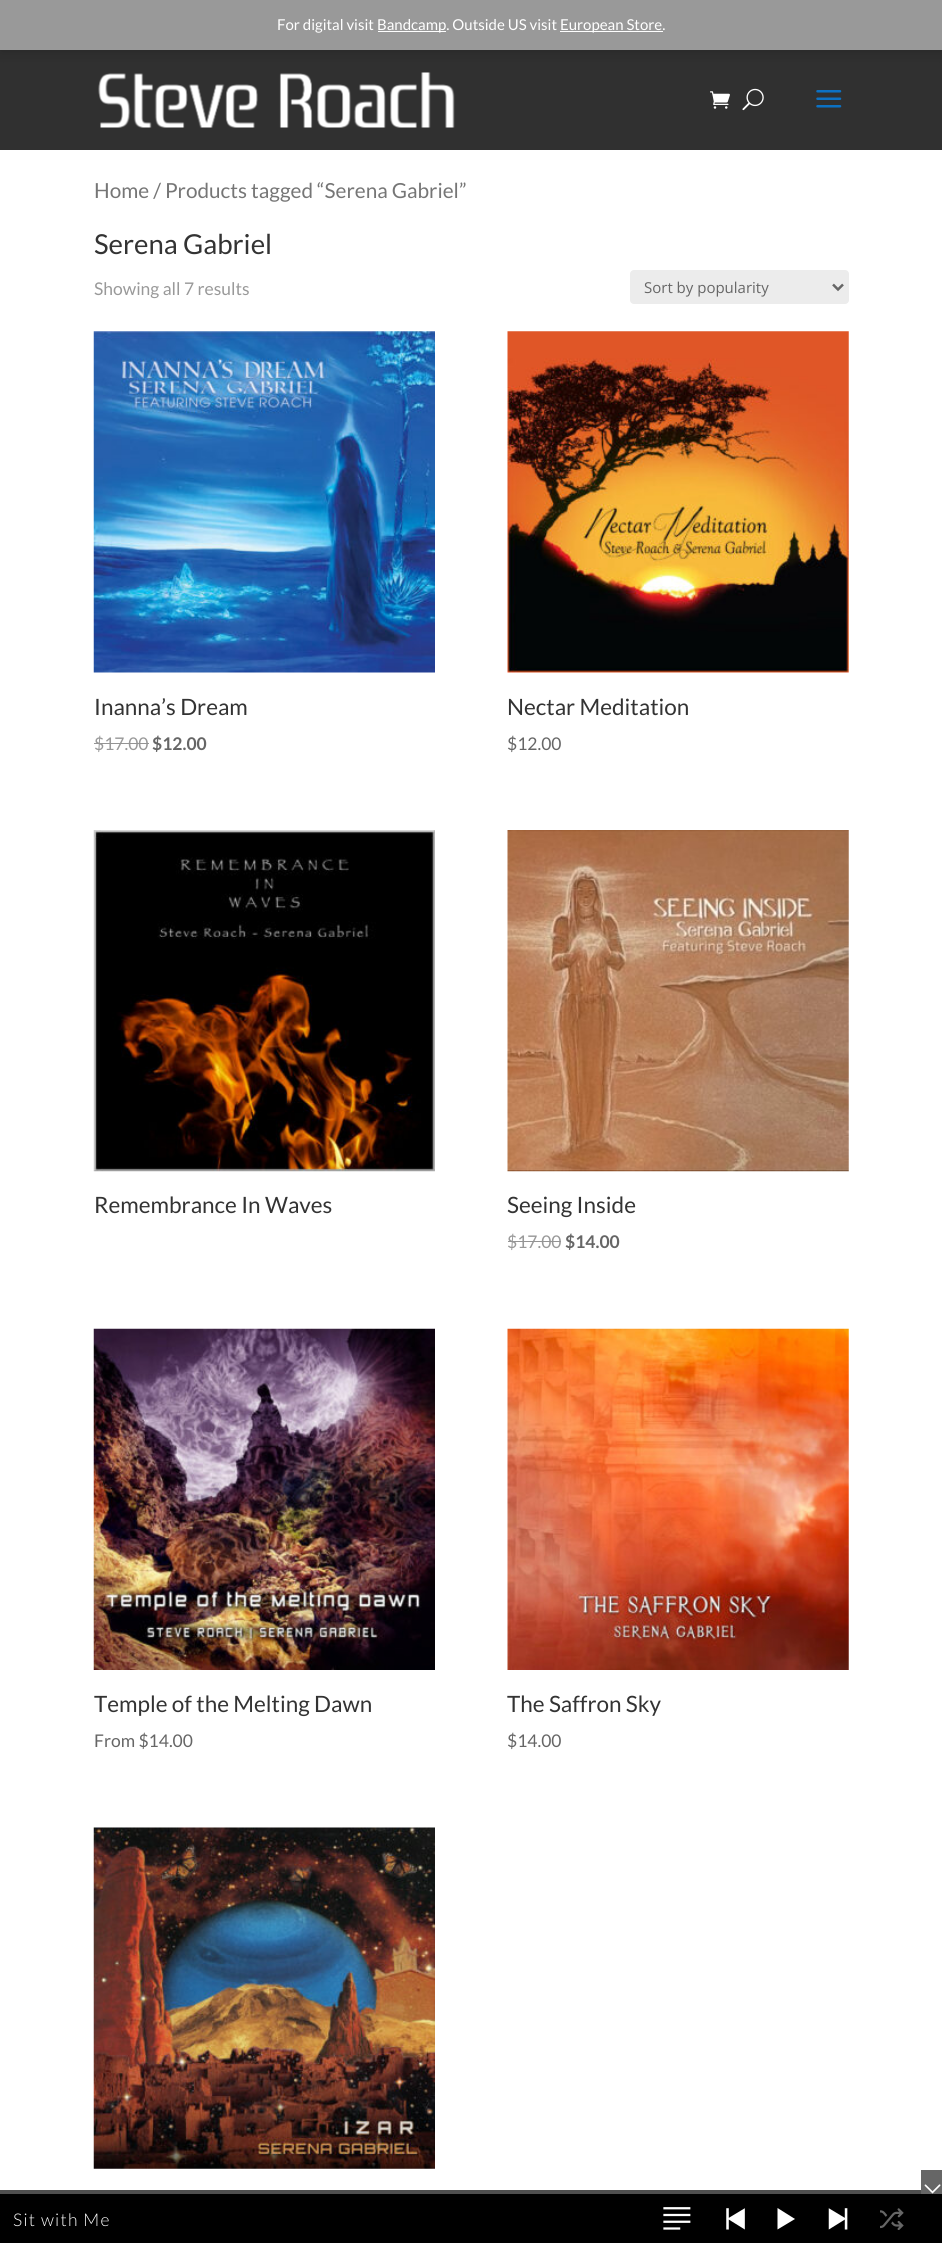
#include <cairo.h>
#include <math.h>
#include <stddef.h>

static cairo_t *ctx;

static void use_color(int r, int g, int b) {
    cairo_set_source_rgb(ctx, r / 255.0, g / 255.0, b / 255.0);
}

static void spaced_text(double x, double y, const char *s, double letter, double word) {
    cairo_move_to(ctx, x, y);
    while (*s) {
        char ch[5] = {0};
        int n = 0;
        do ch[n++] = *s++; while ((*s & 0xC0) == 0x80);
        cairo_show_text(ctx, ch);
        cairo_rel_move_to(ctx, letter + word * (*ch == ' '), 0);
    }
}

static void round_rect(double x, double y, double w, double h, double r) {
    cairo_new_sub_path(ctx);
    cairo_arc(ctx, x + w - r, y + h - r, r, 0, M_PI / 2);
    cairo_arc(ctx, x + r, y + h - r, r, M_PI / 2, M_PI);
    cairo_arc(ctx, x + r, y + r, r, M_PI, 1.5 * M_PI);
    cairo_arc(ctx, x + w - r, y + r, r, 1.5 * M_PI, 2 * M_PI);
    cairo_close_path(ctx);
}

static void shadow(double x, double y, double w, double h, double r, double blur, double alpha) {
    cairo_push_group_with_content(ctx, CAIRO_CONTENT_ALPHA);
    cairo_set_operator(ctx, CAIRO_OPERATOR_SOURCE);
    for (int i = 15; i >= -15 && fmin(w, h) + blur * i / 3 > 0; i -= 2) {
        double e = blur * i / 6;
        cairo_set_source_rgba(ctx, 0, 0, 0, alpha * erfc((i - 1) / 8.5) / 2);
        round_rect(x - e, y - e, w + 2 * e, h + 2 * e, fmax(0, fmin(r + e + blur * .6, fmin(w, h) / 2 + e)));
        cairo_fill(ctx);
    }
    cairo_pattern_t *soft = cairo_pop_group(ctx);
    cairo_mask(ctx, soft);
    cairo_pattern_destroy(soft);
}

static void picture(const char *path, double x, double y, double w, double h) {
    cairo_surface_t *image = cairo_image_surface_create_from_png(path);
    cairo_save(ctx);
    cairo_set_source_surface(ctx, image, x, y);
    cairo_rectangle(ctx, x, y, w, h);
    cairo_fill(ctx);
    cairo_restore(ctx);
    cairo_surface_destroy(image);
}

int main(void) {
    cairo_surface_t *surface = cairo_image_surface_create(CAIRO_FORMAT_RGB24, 942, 2243);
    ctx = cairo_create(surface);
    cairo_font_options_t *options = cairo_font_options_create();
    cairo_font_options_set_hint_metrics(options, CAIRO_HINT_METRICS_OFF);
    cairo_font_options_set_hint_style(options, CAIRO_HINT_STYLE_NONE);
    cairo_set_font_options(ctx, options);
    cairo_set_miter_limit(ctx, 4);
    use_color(255, 255, 255);
    cairo_paint(ctx);
    use_color(48, 48, 48);
    cairo_rectangle(ctx, 0, 50, 942, 100);
    cairo_fill(ctx);
    use_color(0, 0, 0);
    shadow(0, 1, 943, 50, 0, 7.5, 0.2);
    use_color(153, 153, 153);
    cairo_rectangle(ctx, 0, 0, 942, 50);
    cairo_fill(ctx);
    cairo_select_font_face(ctx, "Lato", CAIRO_FONT_SLANT_NORMAL, CAIRO_FONT_WEIGHT_NORMAL);
    cairo_set_font_size(ctx, 15);
    use_color(255, 255, 255);
    cairo_move_to(ctx, 277, 30);
    cairo_show_text(ctx, "For digital visit");
    cairo_rectangle(ctx, 378, 31, 68, 1);
    cairo_fill(ctx);
    cairo_move_to(ctx, 377, 30);
    cairo_show_text(ctx, "Bandcamp. Outside US visit");
    cairo_rectangle(ctx, 560, 31, 103, 1);
    cairo_fill(ctx);
    cairo_move_to(ctx, 560, 30);
    cairo_show_text(ctx, "European Store.");
    picture("img1.png", 98, 72, 357, 56);
    picture("img2.png", 710, 91, 20, 18);
    picture("img3.png", 742, 88, 22, 23);
    picture("img4.png", 816, 90, 26, 18);
    cairo_set_font_size(ctx, 20.75);
    use_color(118, 118, 118);
    cairo_move_to(ctx, 94, 198);
    cairo_show_text(ctx, "Home / Products tagged “Serena Gabriel”");
    cairo_set_font_size(ctx, 27.5);
    use_color(51, 51, 51);
    cairo_move_to(ctx, 94, 254);
    cairo_show_text(ctx, "Serena Gabriel");
    cairo_set_font_size(ctx, 17.5);
    use_color(153, 153, 153);
    cairo_move_to(ctx, 94, 295);
    cairo_show_text(ctx, "Showing all 7 results");
    use_color(236, 236, 236);
    round_rect(630, 270, 219, 34, 4);
    cairo_fill(ctx);
    cairo_new_path(ctx);
    cairo_move_to(ctx, 833, 284.5);
    cairo_line_to(ctx, 838, 289.5);
    cairo_line_to(ctx, 843, 284.5);
    use_color(102, 102, 102);
    cairo_set_line_width(ctx, 2.5);
    cairo_stroke(ctx);
    cairo_select_font_face(ctx, "Open Sans", CAIRO_FONT_SLANT_NORMAL, CAIRO_FONT_WEIGHT_NORMAL);
    cairo_set_font_size(ctx, 15);
    cairo_move_to(ctx, 644, 293);
    cairo_show_text(ctx, "Sort by popularity");
    picture("img5.png", 93, 331, 342, 342);
    cairo_select_font_face(ctx, "Lato", CAIRO_FONT_SLANT_NORMAL, CAIRO_FONT_WEIGHT_NORMAL);
    cairo_set_font_size(ctx, 22.5);
    use_color(51, 51, 51);
    cairo_move_to(ctx, 94, 715);
    cairo_show_text(ctx, "Inanna’s Dream");
    cairo_set_font_size(ctx, 17.5);
    use_color(153, 153, 153);
    cairo_move_to(ctx, 94, 750);
    cairo_show_text(ctx, "$17.00");
    use_color(148, 148, 148);
    cairo_rectangle(ctx, 94, 743, 55, 1);
    cairo_fill(ctx);
    cairo_select_font_face(ctx, "Lato", CAIRO_FONT_SLANT_NORMAL, CAIRO_FONT_WEIGHT_BOLD);
    use_color(102, 102, 102);
    cairo_move_to(ctx, 152, 750);
    cairo_show_text(ctx, "$12.00");
    picture("img6.png", 507, 331, 342, 342);
    cairo_select_font_face(ctx, "Lato", CAIRO_FONT_SLANT_NORMAL, CAIRO_FONT_WEIGHT_NORMAL);
    cairo_set_font_size(ctx, 22.5);
    use_color(51, 51, 51);
    cairo_move_to(ctx, 507, 715);
    cairo_show_text(ctx, "Nectar Meditation");
    cairo_set_font_size(ctx, 17.5);
    use_color(102, 102, 102);
    cairo_move_to(ctx, 507, 750);
    cairo_show_text(ctx, "$12.00");
    picture("img7.png", 93, 830, 342, 342);
    cairo_set_font_size(ctx, 22.5);
    use_color(51, 51, 51);
    cairo_move_to(ctx, 94, 1213);
    cairo_show_text(ctx, "Remembrance In Waves");
    picture("img8.png", 507, 830, 342, 342);
    cairo_move_to(ctx, 507, 1213);
    cairo_show_text(ctx, "Seeing Inside");
    cairo_set_font_size(ctx, 17.5);
    use_color(153, 153, 153);
    cairo_move_to(ctx, 507, 1248);
    cairo_show_text(ctx, "$17.00");
    use_color(148, 148, 148);
    cairo_rectangle(ctx, 508, 1241, 53, 1);
    cairo_fill(ctx);
    cairo_select_font_face(ctx, "Lato", CAIRO_FONT_SLANT_NORMAL, CAIRO_FONT_WEIGHT_BOLD);
    use_color(102, 102, 102);
    cairo_move_to(ctx, 565, 1248);
    cairo_show_text(ctx, "$14.00");
    picture("img9.png", 93, 1328, 342, 342);
    cairo_select_font_face(ctx, "Lato", CAIRO_FONT_SLANT_NORMAL, CAIRO_FONT_WEIGHT_NORMAL);
    cairo_set_font_size(ctx, 22.5);
    use_color(51, 51, 51);
    cairo_move_to(ctx, 94, 1712);
    cairo_show_text(ctx, "Temple of the Melting Dawn");
    cairo_set_font_size(ctx, 17.5);
    use_color(102, 102, 102);
    cairo_move_to(ctx, 94, 1747);
    cairo_show_text(ctx, "From $14.00");
    picture("img10.png", 507, 1328, 342, 342);
    cairo_set_font_size(ctx, 22.5);
    use_color(51, 51, 51);
    cairo_move_to(ctx, 507, 1712);
    cairo_show_text(ctx, "The Saffron Sky");
    cairo_set_font_size(ctx, 17.5);
    use_color(102, 102, 102);
    cairo_move_to(ctx, 507, 1747);
    cairo_show_text(ctx, "$14.00");
    picture("img11.png", 93, 1827, 342, 342);
    use_color(0, 0, 0);
    cairo_rectangle(ctx, 0, 2194, 942, 49);
    cairo_fill(ctx);
    use_color(79, 79, 79);
    cairo_rectangle(ctx, 0, 2190, 921, 4);
    cairo_fill(ctx);
    use_color(102, 102, 102);
    cairo_rectangle(ctx, 921, 2170, 21, 24);
    cairo_fill(ctx);
    picture("img12.png", 924, 2184, 17, 10);
    cairo_select_font_face(ctx, "Lato Light", CAIRO_FONT_SLANT_NORMAL, CAIRO_FONT_WEIGHT_NORMAL);
    use_color(255, 255, 255);
    spaced_text(13, 2226, "Sit with Me", 1.25, 0);
    picture("img13.png", 663, 2207, 28, 23);
    picture("img14.png", 726, 2208, 19, 22);
    cairo_new_path(ctx);
    cairo_move_to(ctx, 777.5, 2208);
    cairo_line_to(ctx, 795, 2219);
    cairo_line_to(ctx, 777.5, 2229.5);
    cairo_close_path(ctx);
    cairo_fill(ctx);
    picture("img15.png", 828, 2208, 20, 22);
    picture("img16.png", 880, 2208, 24, 22);
    cairo_surface_write_to_png(surface, "result.png");
    cairo_font_options_destroy(options);
    cairo_destroy(ctx);
    cairo_surface_destroy(surface);
    return 0;
}
